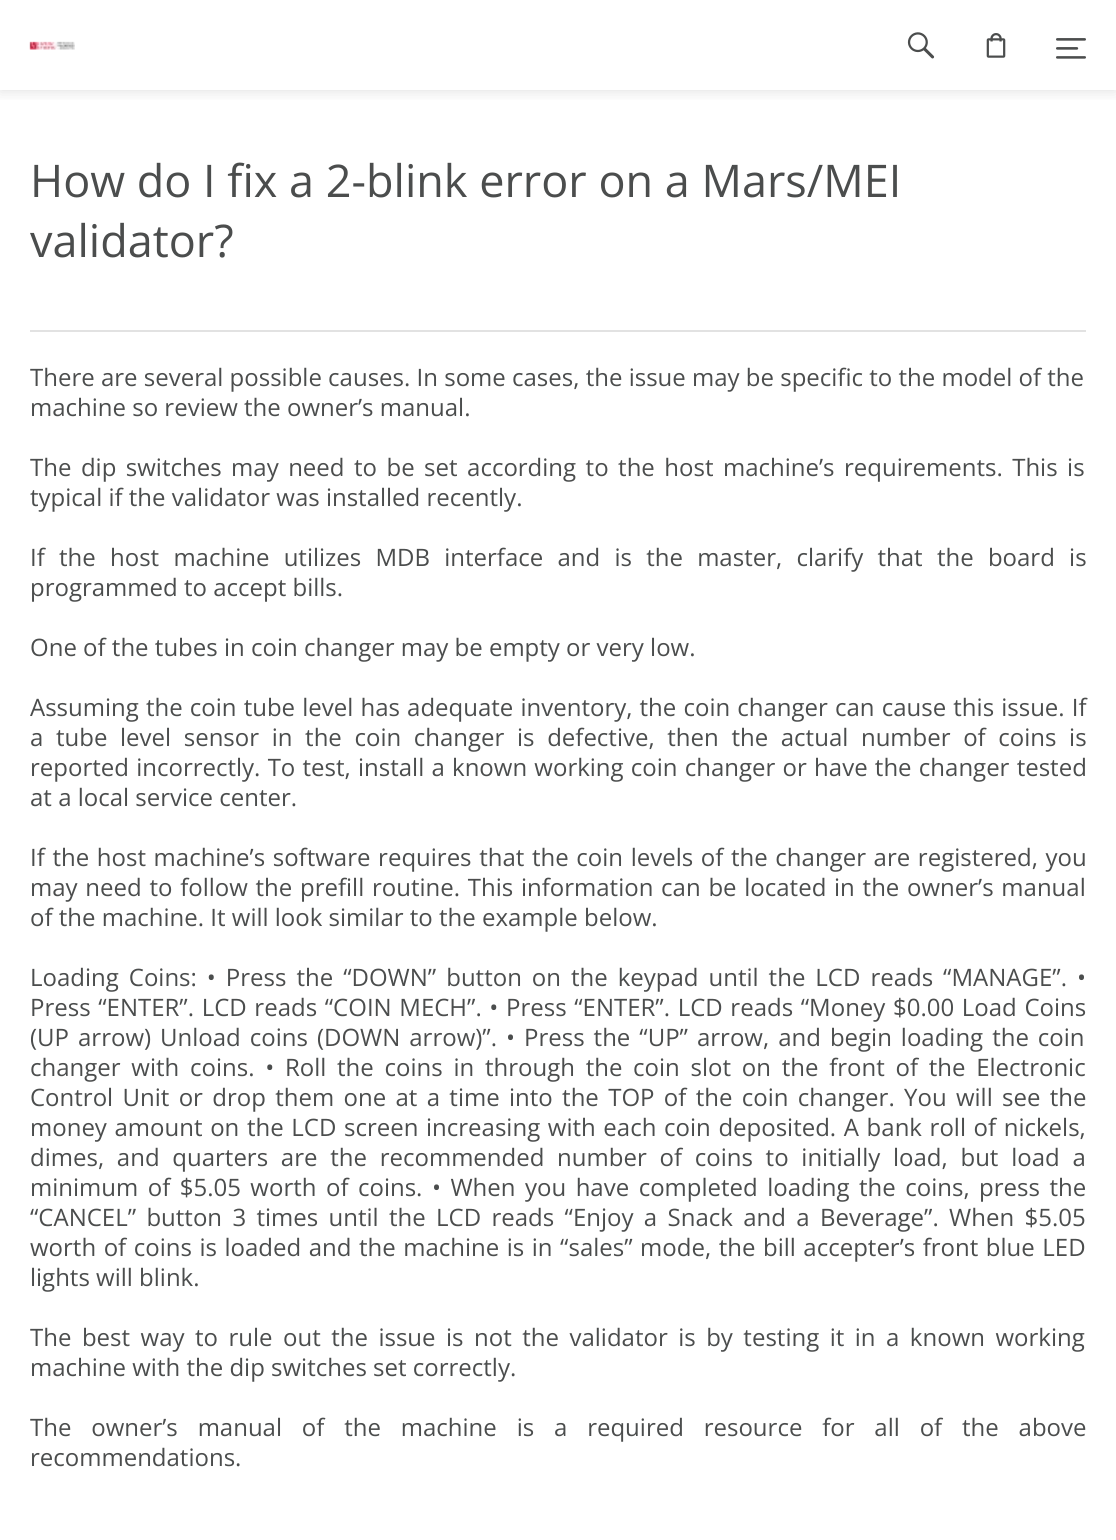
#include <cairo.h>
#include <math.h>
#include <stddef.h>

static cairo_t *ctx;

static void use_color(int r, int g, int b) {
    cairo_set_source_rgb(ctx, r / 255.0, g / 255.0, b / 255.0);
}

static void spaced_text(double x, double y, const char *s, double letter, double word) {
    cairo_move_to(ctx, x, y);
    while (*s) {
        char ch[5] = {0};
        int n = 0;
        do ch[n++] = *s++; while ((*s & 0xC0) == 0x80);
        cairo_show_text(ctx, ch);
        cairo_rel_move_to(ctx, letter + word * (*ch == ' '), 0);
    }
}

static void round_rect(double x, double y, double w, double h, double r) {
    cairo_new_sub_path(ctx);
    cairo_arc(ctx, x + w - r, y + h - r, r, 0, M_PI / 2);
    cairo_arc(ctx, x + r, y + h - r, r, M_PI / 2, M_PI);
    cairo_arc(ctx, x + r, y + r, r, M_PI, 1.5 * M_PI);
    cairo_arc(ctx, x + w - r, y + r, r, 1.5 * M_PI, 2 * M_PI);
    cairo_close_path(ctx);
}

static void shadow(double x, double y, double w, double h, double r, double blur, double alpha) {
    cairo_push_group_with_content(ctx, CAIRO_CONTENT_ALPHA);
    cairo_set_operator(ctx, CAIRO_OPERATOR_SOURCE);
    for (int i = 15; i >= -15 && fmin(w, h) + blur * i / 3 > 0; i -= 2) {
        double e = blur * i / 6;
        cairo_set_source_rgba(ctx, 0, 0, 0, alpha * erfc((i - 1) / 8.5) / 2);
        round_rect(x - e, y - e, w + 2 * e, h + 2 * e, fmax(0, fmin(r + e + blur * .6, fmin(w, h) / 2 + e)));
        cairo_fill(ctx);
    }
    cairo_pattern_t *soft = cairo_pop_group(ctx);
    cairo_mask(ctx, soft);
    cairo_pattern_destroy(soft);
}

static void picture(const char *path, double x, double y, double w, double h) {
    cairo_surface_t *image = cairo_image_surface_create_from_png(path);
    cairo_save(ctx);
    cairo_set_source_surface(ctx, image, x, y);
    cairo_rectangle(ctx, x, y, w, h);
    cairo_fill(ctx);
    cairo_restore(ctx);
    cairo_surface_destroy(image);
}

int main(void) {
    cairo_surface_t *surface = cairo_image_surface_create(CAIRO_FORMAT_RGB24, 1116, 1540);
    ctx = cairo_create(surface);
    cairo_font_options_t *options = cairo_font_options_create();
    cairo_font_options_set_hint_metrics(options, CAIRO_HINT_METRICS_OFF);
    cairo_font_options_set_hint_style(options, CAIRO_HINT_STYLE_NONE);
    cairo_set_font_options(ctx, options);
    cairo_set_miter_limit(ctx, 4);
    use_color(255, 255, 255);
    cairo_paint(ctx);
    cairo_save(ctx);
    cairo_rectangle(ctx, 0, 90, 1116, 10);
    cairo_clip(ctx);
    use_color(74, 73, 74);
    shadow(0, 0, 1116, 90, 0, 7.5, 0.2);
    cairo_restore(ctx);
    picture("img1.png", 29, 41, 46, 9);
    picture("img2.png", 907, 32, 28, 27);
    picture("img3.png", 986, 33, 20, 25);
    picture("img4.png", 1056, 38, 30, 21);
    cairo_select_font_face(ctx, "Open Sans", CAIRO_FONT_SLANT_NORMAL, CAIRO_FONT_WEIGHT_NORMAL);
    cairo_set_font_size(ctx, 45);
    use_color(75, 77, 77);
    cairo_move_to(ctx, 30, 197);
    cairo_show_text(ctx, "How do I fix a 2-blink error on a Mars/MEI");
    cairo_move_to(ctx, 30, 257);
    cairo_show_text(ctx, "validator?");
    use_color(226, 226, 226);
    cairo_rectangle(ctx, 30, 330, 1056, 2);
    cairo_fill(ctx);
    cairo_set_font_size(ctx, 24);
    use_color(75, 77, 77);
    cairo_move_to(ctx, 30, 386);
    cairo_show_text(ctx, "There are several possible causes. In some cases, the issue may be specific to the model of the");
    cairo_move_to(ctx, 30, 416);
    cairo_show_text(ctx, "machine so review the owner’s manual.");
    spaced_text(30, 476, "The dip switches may need to be set according to the host machine’s requirements. This is", 0, 3.25);
    cairo_move_to(ctx, 30, 506);
    cairo_show_text(ctx, "typical if the validator was installed recently.");
    spaced_text(30, 566, "If the host machine utilizes MDB interface and is the master, clarify that the board is", 0, 8);
    cairo_move_to(ctx, 30, 596);
    cairo_show_text(ctx, "programmed to accept bills.");
    cairo_move_to(ctx, 30, 656);
    cairo_show_text(ctx, "One of the tubes in coin changer may be empty or very low.");
    spaced_text(30, 716, "Assuming the coin tube level has adequate inventory, the coin changer can cause this issue. If", 0, 0.9);
    spaced_text(30, 746, "a tube level sensor in the coin changer is defective, then the actual number of coins is", 0, 6.4);
    spaced_text(30, 776, "reported incorrectly. To test, install a known working coin changer or have the changer tested", 0, 1);
    cairo_move_to(ctx, 30, 806);
    cairo_show_text(ctx, "at a local service center.");
    spaced_text(30, 866, "If the host machine’s software requires that the coin levels of the changer are registered, you", 0, 1.4);
    spaced_text(30, 896, "may need to follow the prefill routine. This information can be located in the owner’s manual", 0, 1.5);
    cairo_move_to(ctx, 30, 926);
    cairo_show_text(ctx, "of the machine. It will look similar to the example below.");
    spaced_text(30, 986, "Loading Coins: • Press the “DOWN” button on the keypad until the LCD reads “MANAGE”. •", 0, 3.75);
    spaced_text(30, 1016, "Press “ENTER”. LCD reads “COIN MECH”. • Press “ENTER”. LCD reads “Money $0.00 Load Coins", 0, 1.4);
    spaced_text(30, 1046, "(UP arrow) Unload coins (DOWN arrow)”. • Press the “UP” arrow, and begin loading the coin", 0, 2.75);
    spaced_text(30, 1076, "changer with coins. • Roll the coins in through the coin slot on the front of the Electronic", 0, 4.5);
    spaced_text(30, 1106, "Control Unit or drop them one at a time into the TOP of the coin changer. You will see the", 0, 3.1);
    spaced_text(30, 1136, "money amount on the LCD screen increasing with each coin deposited. A bank roll of nickels,", 0, 1.4);
    spaced_text(30, 1166, "dimes, and quarters are the recommended number of coins to initially load, but load a", 0, 6.5);
    spaced_text(30, 1196, "minimum of $5.05 worth of coins. • When you have completed loading the coins, press the", 0, 3.25);
    spaced_text(30, 1226, "“CANCEL” button 3 times until the LCD reads “Enjoy a Snack and a Beverage”. When $5.05", 0, 4.1);
    spaced_text(30, 1256, "worth of coins is loaded and the machine is in “sales” mode, the bill accepter’s front blue LED", 0, 1.3);
    cairo_move_to(ctx, 30, 1286);
    cairo_show_text(ctx, "lights will blink.");
    spaced_text(30, 1346, "The best way to rule out the issue is not the validator is by testing it in a known working", 0, 4.25);
    cairo_move_to(ctx, 30, 1376);
    cairo_show_text(ctx, "machine with the dip switches set correctly.");
    spaced_text(30, 1436, "The owner’s manual of the machine is a required resource for all of the above", 0, 13.6);
    cairo_move_to(ctx, 30, 1466);
    cairo_show_text(ctx, "recommendations.");
    cairo_surface_write_to_png(surface, "result.png");
    cairo_font_options_destroy(options);
    cairo_destroy(ctx);
    cairo_surface_destroy(surface);
    return 0;
}
